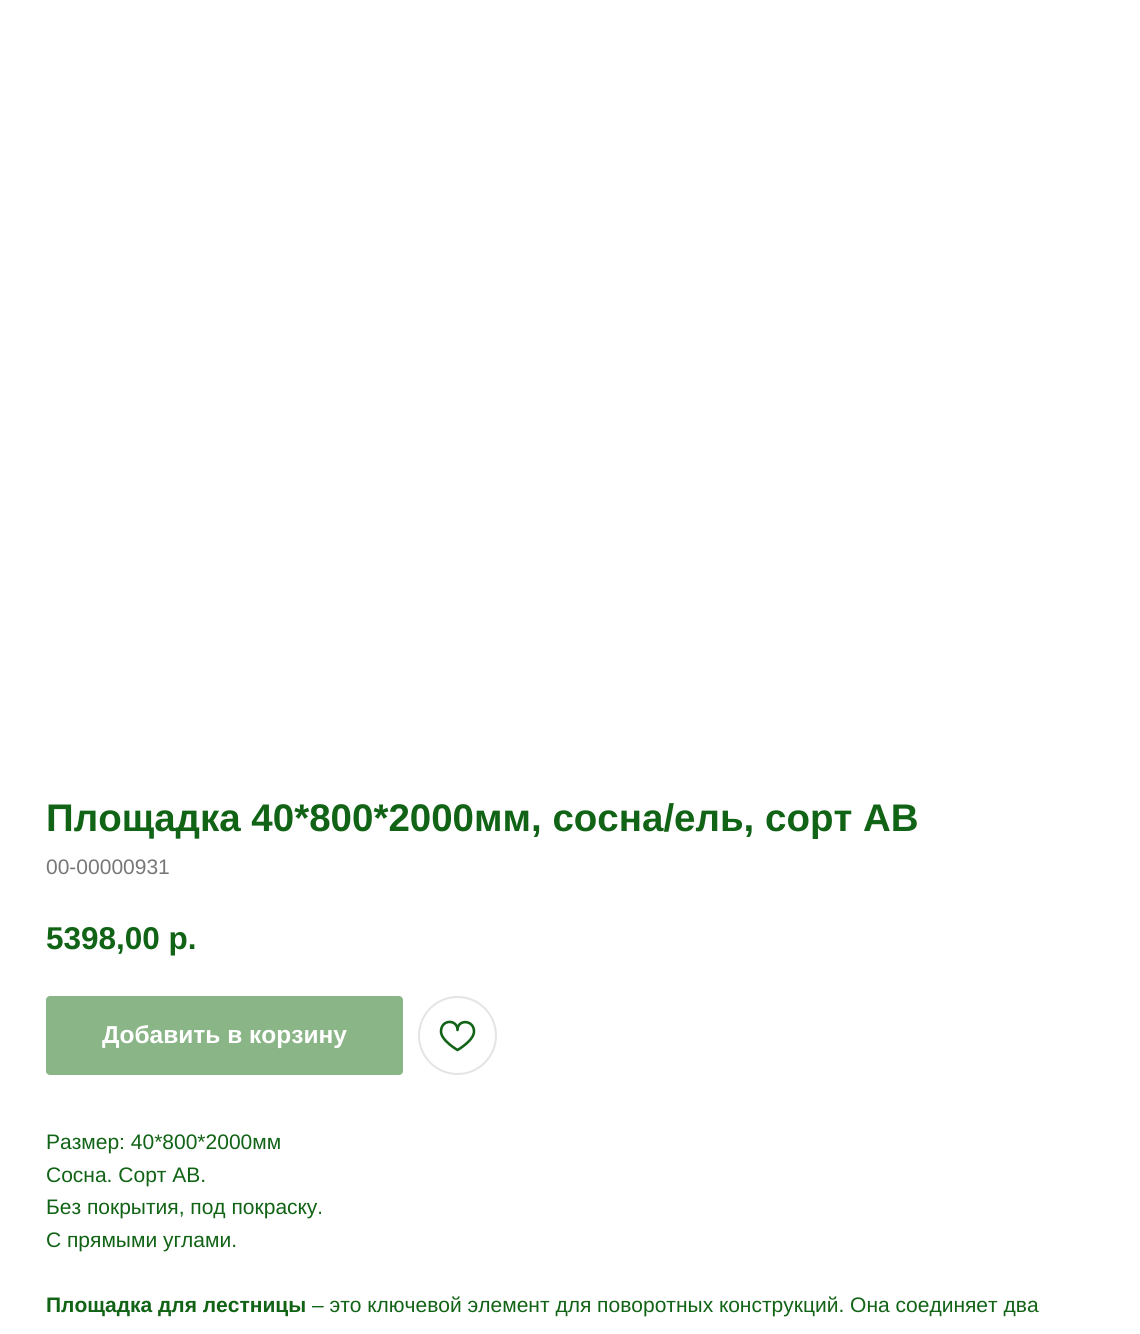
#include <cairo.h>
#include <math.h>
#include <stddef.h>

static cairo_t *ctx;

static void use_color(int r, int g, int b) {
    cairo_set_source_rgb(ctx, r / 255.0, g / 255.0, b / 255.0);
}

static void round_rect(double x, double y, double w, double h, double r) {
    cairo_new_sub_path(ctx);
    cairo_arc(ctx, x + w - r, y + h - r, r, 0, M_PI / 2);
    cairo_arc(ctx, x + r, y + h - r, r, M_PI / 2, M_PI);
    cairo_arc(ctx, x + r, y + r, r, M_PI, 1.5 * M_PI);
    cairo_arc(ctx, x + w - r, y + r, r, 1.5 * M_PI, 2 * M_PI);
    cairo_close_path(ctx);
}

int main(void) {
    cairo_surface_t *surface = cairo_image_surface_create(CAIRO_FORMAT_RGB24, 1140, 1334);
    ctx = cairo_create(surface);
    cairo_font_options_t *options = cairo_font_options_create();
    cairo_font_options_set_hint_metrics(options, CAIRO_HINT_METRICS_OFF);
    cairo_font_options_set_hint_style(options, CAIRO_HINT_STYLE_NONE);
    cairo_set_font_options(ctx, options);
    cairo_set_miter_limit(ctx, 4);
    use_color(255, 255, 255);
    cairo_paint(ctx);
    cairo_select_font_face(ctx, "Liberation Sans", CAIRO_FONT_SLANT_NORMAL, CAIRO_FONT_WEIGHT_BOLD);
    cairo_set_font_size(ctx, 38.5);
    use_color(17, 99, 21);
    cairo_move_to(ctx, 46, 831);
    cairo_show_text(ctx, "Площадка 40*800*2000мм, сосна/ель, сорт АВ");
    cairo_select_font_face(ctx, "Liberation Sans", CAIRO_FONT_SLANT_NORMAL, CAIRO_FONT_WEIGHT_NORMAL);
    cairo_set_font_size(ctx, 21);
    use_color(119, 119, 119);
    cairo_move_to(ctx, 46, 874);
    cairo_show_text(ctx, "00-00000931");
    cairo_select_font_face(ctx, "Liberation Sans", CAIRO_FONT_SLANT_NORMAL, CAIRO_FONT_WEIGHT_BOLD);
    cairo_set_font_size(ctx, 31.5);
    use_color(17, 99, 21);
    cairo_move_to(ctx, 46, 949);
    cairo_show_text(ctx, "5398,00 р.");
    use_color(138, 181, 135);
    round_rect(46, 996, 357, 79, 4);
    cairo_fill(ctx);
    cairo_set_font_size(ctx, 24.5);
    use_color(255, 255, 255);
    cairo_move_to(ctx, 102, 1043);
    cairo_show_text(ctx, "Добавить в корзину");
    cairo_new_path(ctx);
    cairo_arc(ctx, 457.5, 1035.5, 38.5, 0, 2 * M_PI);
    use_color(228, 228, 228);
    cairo_stroke(ctx);
    cairo_new_path(ctx);
    cairo_move_to(ctx, 474, 1031.5);
    cairo_curve_to(ctx, 474, 1040.5, 457.5, 1050, 457.5, 1050);
    cairo_curve_to(ctx, 457.5, 1050, 441, 1040.5, 441, 1031.5);
    cairo_curve_to(ctx, 441, 1019, 457.5, 1019, 457.5, 1030);
    cairo_curve_to(ctx, 457.5, 1019, 474, 1019.5, 474, 1031.5);
    cairo_close_path(ctx);
    use_color(17, 99, 21);
    cairo_set_line_width(ctx, 2.6);
    cairo_set_line_join(ctx, CAIRO_LINE_JOIN_ROUND);
    cairo_stroke(ctx);
    cairo_select_font_face(ctx, "Liberation Sans", CAIRO_FONT_SLANT_NORMAL, CAIRO_FONT_WEIGHT_NORMAL);
    cairo_set_font_size(ctx, 21);
    cairo_move_to(ctx, 46, 1149);
    cairo_show_text(ctx, "Размер: 40*800*2000мм");
    cairo_move_to(ctx, 46, 1182);
    cairo_show_text(ctx, "Сосна. Сорт АВ.");
    cairo_move_to(ctx, 46, 1214);
    cairo_show_text(ctx, "Без покрытия, под покраску.");
    cairo_move_to(ctx, 46, 1247);
    cairo_show_text(ctx, "С прямыми углами.");
    cairo_select_font_face(ctx, "Liberation Sans", CAIRO_FONT_SLANT_NORMAL, CAIRO_FONT_WEIGHT_BOLD);
    cairo_move_to(ctx, 46, 1312);
    cairo_show_text(ctx, "Площадка для лестницы");
    cairo_select_font_face(ctx, "Liberation Sans", CAIRO_FONT_SLANT_NORMAL, CAIRO_FONT_WEIGHT_NORMAL);
    cairo_move_to(ctx, 312, 1312);
    cairo_show_text(ctx, "– это ключевой элемент для поворотных конструкций. Она соединяет два");
    cairo_surface_write_to_png(surface, "result.png");
    cairo_font_options_destroy(options);
    cairo_destroy(ctx);
    cairo_surface_destroy(surface);
    return 0;
}
